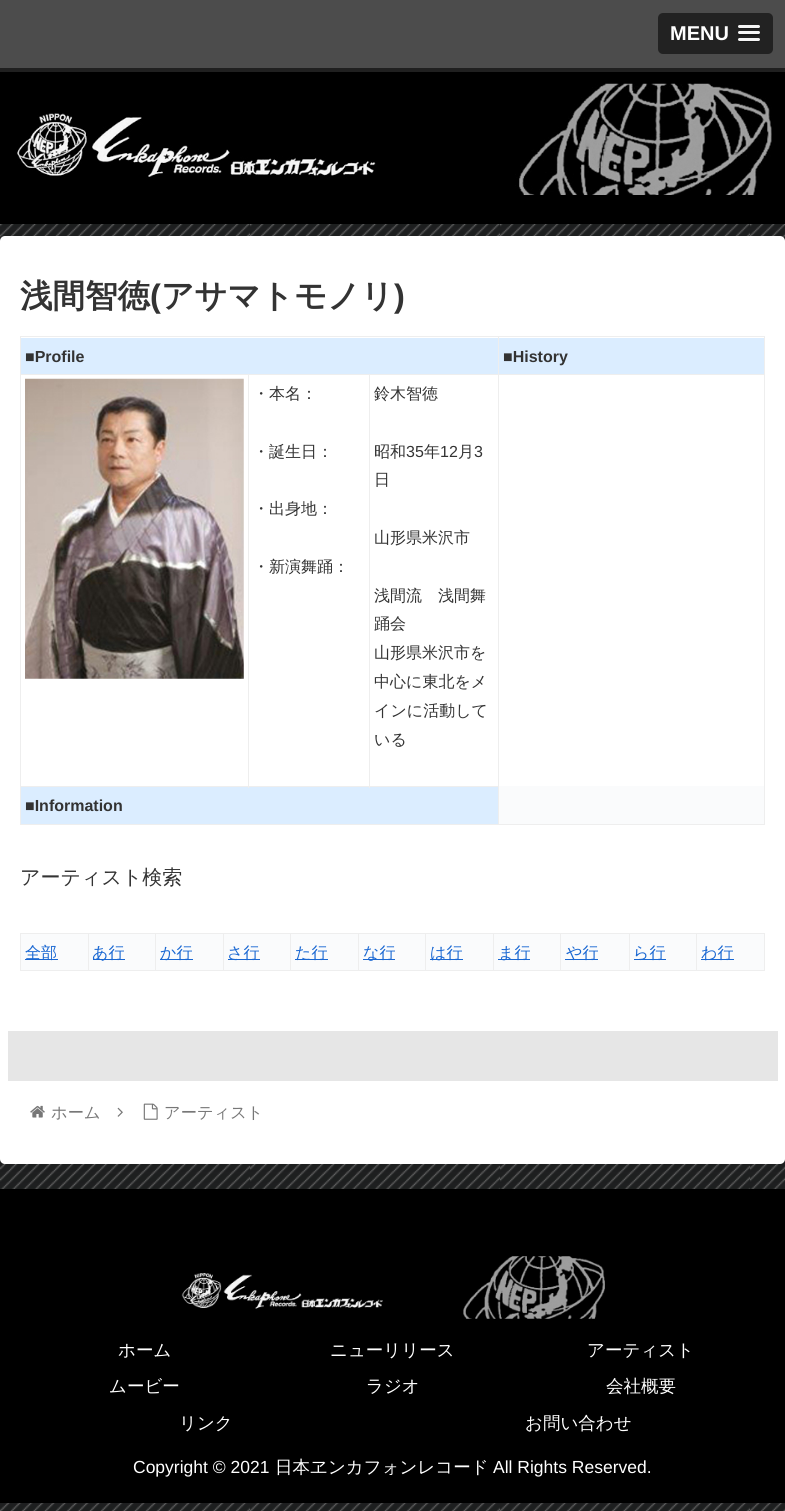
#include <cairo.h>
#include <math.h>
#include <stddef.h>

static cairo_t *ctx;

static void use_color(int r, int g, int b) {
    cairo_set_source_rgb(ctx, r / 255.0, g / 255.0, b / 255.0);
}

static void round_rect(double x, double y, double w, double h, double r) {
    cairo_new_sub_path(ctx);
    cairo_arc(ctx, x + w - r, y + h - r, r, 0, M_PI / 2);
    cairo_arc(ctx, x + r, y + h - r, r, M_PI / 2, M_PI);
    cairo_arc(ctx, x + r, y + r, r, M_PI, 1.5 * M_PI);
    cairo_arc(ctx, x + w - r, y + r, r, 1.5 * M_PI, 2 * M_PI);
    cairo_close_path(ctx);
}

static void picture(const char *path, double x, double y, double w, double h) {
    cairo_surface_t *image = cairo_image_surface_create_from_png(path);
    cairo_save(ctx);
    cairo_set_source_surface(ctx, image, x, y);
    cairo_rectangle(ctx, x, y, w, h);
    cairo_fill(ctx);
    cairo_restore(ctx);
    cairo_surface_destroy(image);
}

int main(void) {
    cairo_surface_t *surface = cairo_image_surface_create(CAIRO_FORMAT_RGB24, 785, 1511);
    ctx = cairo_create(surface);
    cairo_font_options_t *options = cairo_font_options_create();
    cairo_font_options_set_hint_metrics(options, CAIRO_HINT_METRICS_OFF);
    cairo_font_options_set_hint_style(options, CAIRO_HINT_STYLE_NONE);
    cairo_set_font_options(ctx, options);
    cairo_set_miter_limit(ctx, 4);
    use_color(255, 255, 255);
    cairo_paint(ctx);
    picture("img1.png", 0, 224, 785, 1287);
    use_color(76, 76, 76);
    cairo_rectangle(ctx, 0, 0, 785, 68);
    cairo_fill(ctx);
    use_color(34, 34, 34);
    round_rect(658, 13, 115, 41, 5);
    cairo_fill(ctx);
    cairo_select_font_face(ctx, "Liberation Sans", CAIRO_FONT_SLANT_NORMAL, CAIRO_FONT_WEIGHT_BOLD);
    cairo_set_font_size(ctx, 20);
    use_color(255, 255, 255);
    cairo_move_to(ctx, 670, 40);
    cairo_show_text(ctx, "MENU");
    use_color(26, 26, 26);
    cairo_new_path(ctx);
    cairo_move_to(ctx, 738, 27.5);
    cairo_curve_to(ctx, 737.5, 29.5, 741.5, 29, 742.5, 29);
    cairo_line_to(ctx, 755.5, 29);
    cairo_curve_to(ctx, 756, 29, 761, 29.5, 760, 27);
    cairo_line_to(ctx, 759, 27.5);
    cairo_curve_to(ctx, 757, 27.5, 738.5, 27.5, 738, 27.5);
    cairo_close_path(ctx);
    cairo_fill(ctx);
    use_color(245, 245, 245);
    round_rect(738, 25, 22, 3, 1.5);
    cairo_fill(ctx);
    use_color(26, 26, 26);
    cairo_new_path(ctx);
    cairo_move_to(ctx, 738.5, 33.5);
    cairo_curve_to(ctx, 736.5, 36.5, 742, 36, 742.5, 36);
    cairo_line_to(ctx, 749, 36);
    cairo_curve_to(ctx, 751, 36, 759, 36.5, 759.5, 35.5);
    cairo_curve_to(ctx, 760, 34.5, 760, 34, 759.5, 33.5);
    cairo_curve_to(ctx, 759, 34, 739.5, 34, 738.5, 33.5);
    cairo_close_path(ctx);
    cairo_fill(ctx);
    use_color(245, 245, 245);
    round_rect(738, 31, 22, 3, 1.5);
    cairo_fill(ctx);
    use_color(26, 26, 26);
    cairo_new_path(ctx);
    cairo_move_to(ctx, 738, 40);
    cairo_curve_to(ctx, 737, 42.5, 742, 42, 742.5, 42);
    cairo_line_to(ctx, 755.5, 42);
    cairo_curve_to(ctx, 755.5, 42, 762, 42.5, 759.5, 39.5);
    cairo_line_to(ctx, 759, 40);
    cairo_close_path(ctx);
    cairo_fill(ctx);
    use_color(245, 245, 245);
    round_rect(738, 38, 22, 3, 1.5);
    cairo_fill(ctx);
    use_color(0, 0, 0);
    cairo_rectangle(ctx, 0, 72, 785, 152);
    cairo_fill(ctx);
    use_color(32, 32, 32);
    cairo_rectangle(ctx, 0, 68, 785, 4);
    cairo_fill(ctx);
    picture("img2.png", 17, 83, 755, 112);
    use_color(255, 255, 255);
    round_rect(0, 236, 785, 928, 5);
    cairo_fill(ctx);
    cairo_select_font_face(ctx, "WenQuanYi Zen Hei", CAIRO_FONT_SLANT_NORMAL, CAIRO_FONT_WEIGHT_BOLD);
    cairo_set_font_size(ctx, 32.5);
    use_color(51, 51, 51);
    cairo_move_to(ctx, 20, 307);
    cairo_show_text(ctx, "浅間智徳");
    cairo_select_font_face(ctx, "Liberation Sans", CAIRO_FONT_SLANT_NORMAL, CAIRO_FONT_WEIGHT_BOLD);
    cairo_move_to(ctx, 150, 307);
    cairo_show_text(ctx, "(");
    cairo_select_font_face(ctx, "WenQuanYi Zen Hei", CAIRO_FONT_SLANT_NORMAL, CAIRO_FONT_WEIGHT_BOLD);
    cairo_move_to(ctx, 161, 307);
    cairo_show_text(ctx, "アサマトモノリ");
    cairo_select_font_face(ctx, "Liberation Sans", CAIRO_FONT_SLANT_NORMAL, CAIRO_FONT_WEIGHT_BOLD);
    cairo_move_to(ctx, 394, 307);
    cairo_show_text(ctx, ")");
    use_color(219, 237, 255);
    cairo_rectangle(ctx, 21, 338, 477, 36);
    cairo_fill(ctx);
    use_color(238, 238, 238);
    cairo_rectangle(ctx, 498, 336, 267, 1);
    cairo_fill(ctx);
    cairo_rectangle(ctx, 498, 374, 267, 1);
    cairo_fill(ctx);
    cairo_rectangle(ctx, 764, 374, 1, 451);
    cairo_fill(ctx);
    cairo_rectangle(ctx, 20, 824, 479, 1);
    cairo_fill(ctx);
    cairo_rectangle(ctx, 498, 824, 267, 1);
    cairo_fill(ctx);
    cairo_rectangle(ctx, 20, 786, 479, 1);
    cairo_fill(ctx);
    cairo_rectangle(ctx, 498, 374, 1, 451);
    cairo_fill(ctx);
    cairo_rectangle(ctx, 369, 374, 130, 1);
    cairo_fill(ctx);
    cairo_rectangle(ctx, 498, 336, 1, 39);
    cairo_fill(ctx);
    cairo_rectangle(ctx, 20, 336, 479, 1);
    cairo_fill(ctx);
    use_color(219, 237, 255);
    cairo_rectangle(ctx, 21, 787, 477, 37);
    cairo_fill(ctx);
    use_color(238, 238, 238);
    cairo_rectangle(ctx, 369, 374, 1, 414);
    cairo_fill(ctx);
    cairo_rectangle(ctx, 248, 374, 122, 1);
    cairo_fill(ctx);
    cairo_rectangle(ctx, 248, 374, 1, 414);
    cairo_fill(ctx);
    cairo_rectangle(ctx, 20, 374, 229, 1);
    cairo_fill(ctx);
    cairo_rectangle(ctx, 20, 786, 1, 39);
    cairo_fill(ctx);
    cairo_rectangle(ctx, 20, 374, 1, 414);
    cairo_fill(ctx);
    cairo_rectangle(ctx, 20, 336, 1, 39);
    cairo_fill(ctx);
    cairo_set_font_size(ctx, 16);
    use_color(51, 51, 51);
    cairo_move_to(ctx, 25, 362);
    cairo_show_text(ctx, "■Profile");
    use_color(219, 237, 255);
    cairo_rectangle(ctx, 499, 338, 265, 36);
    cairo_fill(ctx);
    use_color(238, 238, 238);
    cairo_rectangle(ctx, 764, 336, 1, 39);
    cairo_fill(ctx);
    use_color(51, 51, 51);
    cairo_move_to(ctx, 503, 362);
    cairo_show_text(ctx, "■History");
    picture("img3.png", 25, 378, 219, 301);
    cairo_select_font_face(ctx, "WenQuanYi Zen Hei Medium", CAIRO_FONT_SLANT_NORMAL, CAIRO_FONT_WEIGHT_NORMAL);
    cairo_move_to(ctx, 253, 399);
    cairo_show_text(ctx, "・本名：");
    cairo_move_to(ctx, 253, 457);
    cairo_show_text(ctx, "・誕生日：");
    cairo_move_to(ctx, 253, 514);
    cairo_show_text(ctx, "・出身地：");
    cairo_move_to(ctx, 253, 572);
    cairo_show_text(ctx, "・新演舞踊：");
    cairo_move_to(ctx, 374, 399);
    cairo_show_text(ctx, "鈴木智徳");
    cairo_move_to(ctx, 374, 457);
    cairo_show_text(ctx, "昭和");
    cairo_select_font_face(ctx, "Liberation Sans", CAIRO_FONT_SLANT_NORMAL, CAIRO_FONT_WEIGHT_NORMAL);
    cairo_move_to(ctx, 406, 457);
    cairo_show_text(ctx, "35");
    cairo_select_font_face(ctx, "WenQuanYi Zen Hei Medium", CAIRO_FONT_SLANT_NORMAL, CAIRO_FONT_WEIGHT_NORMAL);
    cairo_move_to(ctx, 424, 457);
    cairo_show_text(ctx, "年");
    cairo_select_font_face(ctx, "Liberation Sans", CAIRO_FONT_SLANT_NORMAL, CAIRO_FONT_WEIGHT_NORMAL);
    cairo_move_to(ctx, 440, 457);
    cairo_show_text(ctx, "12");
    cairo_select_font_face(ctx, "WenQuanYi Zen Hei Medium", CAIRO_FONT_SLANT_NORMAL, CAIRO_FONT_WEIGHT_NORMAL);
    cairo_move_to(ctx, 458, 457);
    cairo_show_text(ctx, "月");
    cairo_select_font_face(ctx, "Liberation Sans", CAIRO_FONT_SLANT_NORMAL, CAIRO_FONT_WEIGHT_NORMAL);
    cairo_move_to(ctx, 474, 457);
    cairo_show_text(ctx, "3");
    cairo_select_font_face(ctx, "WenQuanYi Zen Hei Medium", CAIRO_FONT_SLANT_NORMAL, CAIRO_FONT_WEIGHT_NORMAL);
    cairo_move_to(ctx, 374, 485);
    cairo_show_text(ctx, "日");
    cairo_move_to(ctx, 374, 543);
    cairo_show_text(ctx, "山形県米沢市");
    cairo_move_to(ctx, 374, 601);
    cairo_show_text(ctx, "浅間流　浅間舞");
    cairo_move_to(ctx, 374, 629);
    cairo_show_text(ctx, "踊会");
    cairo_move_to(ctx, 374, 658);
    cairo_show_text(ctx, "山形県米沢市を");
    cairo_move_to(ctx, 374, 687);
    cairo_show_text(ctx, "中心に東北をメ");
    cairo_move_to(ctx, 374, 716);
    cairo_show_text(ctx, "インに活動して");
    cairo_move_to(ctx, 374, 745);
    cairo_show_text(ctx, "いる");
    use_color(250, 251, 252);
    cairo_rectangle(ctx, 499, 786, 265, 38);
    cairo_fill(ctx);
    cairo_select_font_face(ctx, "Liberation Sans", CAIRO_FONT_SLANT_NORMAL, CAIRO_FONT_WEIGHT_BOLD);
    use_color(51, 51, 51);
    cairo_move_to(ctx, 25, 811);
    cairo_show_text(ctx, "■Information");
    cairo_select_font_face(ctx, "WenQuanYi Zen Hei Medium", CAIRO_FONT_SLANT_NORMAL, CAIRO_FONT_WEIGHT_NORMAL);
    cairo_set_font_size(ctx, 20);
    cairo_move_to(ctx, 20, 884);
    cairo_show_text(ctx, "アーティスト検索");
    use_color(250, 251, 252);
    cairo_rectangle(ctx, 21, 934, 743, 36);
    cairo_fill(ctx);
    use_color(238, 238, 238);
    cairo_rectangle(ctx, 696, 933, 69, 1);
    cairo_fill(ctx);
    cairo_rectangle(ctx, 764, 933, 1, 38);
    cairo_fill(ctx);
    cairo_rectangle(ctx, 696, 970, 69, 1);
    cairo_fill(ctx);
    cairo_rectangle(ctx, 696, 933, 1, 38);
    cairo_fill(ctx);
    cairo_rectangle(ctx, 629, 933, 69, 1);
    cairo_fill(ctx);
    cairo_rectangle(ctx, 629, 970, 69, 1);
    cairo_fill(ctx);
    cairo_rectangle(ctx, 629, 933, 1, 38);
    cairo_fill(ctx);
    cairo_rectangle(ctx, 560, 933, 70, 1);
    cairo_fill(ctx);
    cairo_rectangle(ctx, 560, 970, 70, 1);
    cairo_fill(ctx);
    cairo_rectangle(ctx, 560, 933, 1, 38);
    cairo_fill(ctx);
    cairo_rectangle(ctx, 493, 933, 68, 1);
    cairo_fill(ctx);
    cairo_rectangle(ctx, 493, 970, 68, 1);
    cairo_fill(ctx);
    cairo_rectangle(ctx, 493, 933, 1, 38);
    cairo_fill(ctx);
    cairo_rectangle(ctx, 425, 933, 69, 1);
    cairo_fill(ctx);
    cairo_rectangle(ctx, 425, 970, 69, 1);
    cairo_fill(ctx);
    cairo_rectangle(ctx, 425, 933, 1, 38);
    cairo_fill(ctx);
    cairo_rectangle(ctx, 358, 933, 68, 1);
    cairo_fill(ctx);
    cairo_rectangle(ctx, 358, 970, 68, 1);
    cairo_fill(ctx);
    cairo_rectangle(ctx, 358, 933, 1, 38);
    cairo_fill(ctx);
    cairo_rectangle(ctx, 290, 933, 69, 1);
    cairo_fill(ctx);
    cairo_rectangle(ctx, 290, 970, 69, 1);
    cairo_fill(ctx);
    cairo_rectangle(ctx, 290, 933, 1, 38);
    cairo_fill(ctx);
    cairo_rectangle(ctx, 223, 933, 68, 1);
    cairo_fill(ctx);
    cairo_rectangle(ctx, 223, 970, 68, 1);
    cairo_fill(ctx);
    cairo_rectangle(ctx, 223, 933, 1, 38);
    cairo_fill(ctx);
    cairo_rectangle(ctx, 155, 933, 69, 1);
    cairo_fill(ctx);
    cairo_rectangle(ctx, 155, 970, 69, 1);
    cairo_fill(ctx);
    cairo_rectangle(ctx, 155, 933, 1, 38);
    cairo_fill(ctx);
    cairo_rectangle(ctx, 88, 933, 68, 1);
    cairo_fill(ctx);
    cairo_rectangle(ctx, 88, 970, 68, 1);
    cairo_fill(ctx);
    cairo_rectangle(ctx, 88, 933, 1, 38);
    cairo_fill(ctx);
    cairo_rectangle(ctx, 20, 933, 69, 1);
    cairo_fill(ctx);
    cairo_rectangle(ctx, 20, 970, 69, 1);
    cairo_fill(ctx);
    cairo_rectangle(ctx, 20, 933, 1, 38);
    cairo_fill(ctx);
    use_color(25, 103, 210);
    cairo_rectangle(ctx, 25, 959, 33, 1);
    cairo_fill(ctx);
    cairo_set_font_size(ctx, 16);
    cairo_move_to(ctx, 25, 958);
    cairo_show_text(ctx, "全部");
    cairo_rectangle(ctx, 93, 959, 32, 1);
    cairo_fill(ctx);
    cairo_move_to(ctx, 92, 958);
    cairo_show_text(ctx, "あ行");
    cairo_rectangle(ctx, 160, 959, 33, 1);
    cairo_fill(ctx);
    cairo_move_to(ctx, 160, 958);
    cairo_show_text(ctx, "か行");
    cairo_rectangle(ctx, 228, 959, 32, 1);
    cairo_fill(ctx);
    cairo_move_to(ctx, 227, 958);
    cairo_show_text(ctx, "さ行");
    cairo_rectangle(ctx, 295, 959, 33, 1);
    cairo_fill(ctx);
    cairo_move_to(ctx, 295, 958);
    cairo_show_text(ctx, "た行");
    cairo_rectangle(ctx, 363, 959, 32, 1);
    cairo_fill(ctx);
    cairo_move_to(ctx, 363, 958);
    cairo_show_text(ctx, "な行");
    cairo_rectangle(ctx, 430, 959, 33, 1);
    cairo_fill(ctx);
    cairo_move_to(ctx, 430, 958);
    cairo_show_text(ctx, "は行");
    cairo_rectangle(ctx, 498, 959, 32, 1);
    cairo_fill(ctx);
    cairo_move_to(ctx, 498, 958);
    cairo_show_text(ctx, "ま行");
    cairo_rectangle(ctx, 565, 959, 33, 1);
    cairo_fill(ctx);
    cairo_move_to(ctx, 566, 958);
    cairo_show_text(ctx, "や行");
    cairo_rectangle(ctx, 634, 959, 32, 1);
    cairo_fill(ctx);
    cairo_move_to(ctx, 633, 958);
    cairo_show_text(ctx, "ら行");
    cairo_rectangle(ctx, 701, 959, 33, 1);
    cairo_fill(ctx);
    cairo_move_to(ctx, 701, 958);
    cairo_show_text(ctx, "わ行");
    use_color(230, 230, 230);
    cairo_rectangle(ctx, 8, 1031, 770, 50);
    cairo_fill(ctx);
    picture("img4.png", 30, 1105, 15, 13);
    cairo_set_font_size(ctx, 16.25);
    use_color(119, 119, 119);
    cairo_move_to(ctx, 51, 1118);
    cairo_show_text(ctx, "ホーム");
    picture("img5.png", 117, 1107, 6, 10);
    picture("img6.png", 143, 1103, 15, 17);
    cairo_move_to(ctx, 164, 1118);
    cairo_show_text(ctx, "アーティスト");
    use_color(0, 0, 0);
    cairo_rectangle(ctx, 0, 1189, 785, 314);
    cairo_fill(ctx);
    picture("img7.png", 181, 1256, 424, 63);
    cairo_set_font_size(ctx, 17.5);
    use_color(255, 255, 255);
    cairo_move_to(ctx, 118, 1356);
    cairo_show_text(ctx, "ホーム");
    cairo_move_to(ctx, 330, 1356);
    cairo_show_text(ctx, "ニューリリース");
    cairo_move_to(ctx, 587, 1356);
    cairo_show_text(ctx, "アーティスト");
    cairo_move_to(ctx, 109, 1392);
    cairo_show_text(ctx, "ムービー");
    cairo_move_to(ctx, 366, 1392);
    cairo_show_text(ctx, "ラジオ");
    cairo_move_to(ctx, 606, 1392);
    cairo_show_text(ctx, "会社概要");
    cairo_move_to(ctx, 179, 1429);
    cairo_show_text(ctx, "リンク");
    cairo_move_to(ctx, 525, 1429);
    cairo_show_text(ctx, "お問い合わせ");
    cairo_select_font_face(ctx, "Liberation Sans", CAIRO_FONT_SLANT_NORMAL, CAIRO_FONT_WEIGHT_NORMAL);
    cairo_move_to(ctx, 133, 1473);
    cairo_show_text(ctx, "Copyright © 2021");
    cairo_select_font_face(ctx, "WenQuanYi Zen Hei Medium", CAIRO_FONT_SLANT_NORMAL, CAIRO_FONT_WEIGHT_NORMAL);
    cairo_move_to(ctx, 275, 1473);
    cairo_show_text(ctx, "日本ヱンカフォンレコード");
    cairo_select_font_face(ctx, "Liberation Sans", CAIRO_FONT_SLANT_NORMAL, CAIRO_FONT_WEIGHT_NORMAL);
    cairo_move_to(ctx, 493, 1473);
    cairo_show_text(ctx, "All Rights Reserved.");
    cairo_surface_write_to_png(surface, "result.png");
    cairo_font_options_destroy(options);
    cairo_destroy(ctx);
    cairo_surface_destroy(surface);
    return 0;
}
